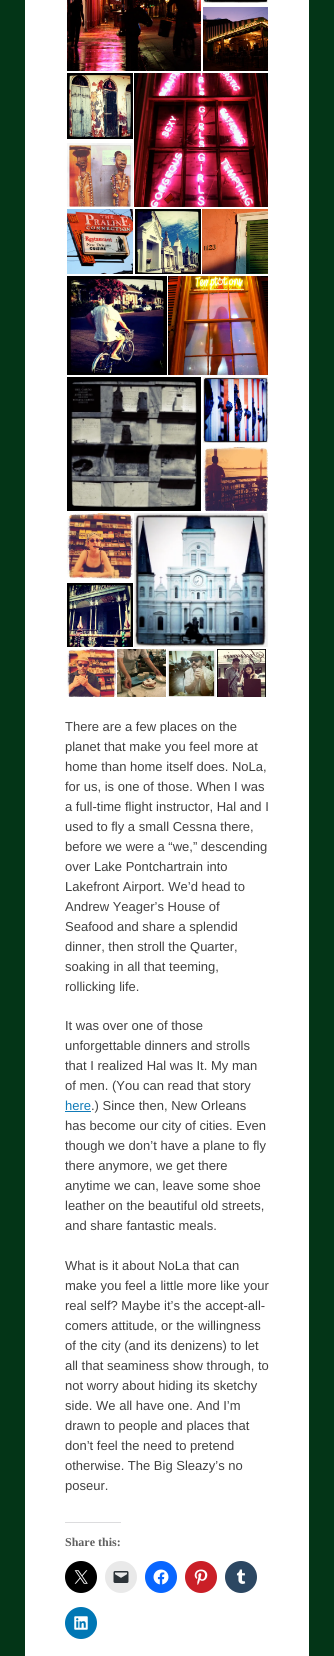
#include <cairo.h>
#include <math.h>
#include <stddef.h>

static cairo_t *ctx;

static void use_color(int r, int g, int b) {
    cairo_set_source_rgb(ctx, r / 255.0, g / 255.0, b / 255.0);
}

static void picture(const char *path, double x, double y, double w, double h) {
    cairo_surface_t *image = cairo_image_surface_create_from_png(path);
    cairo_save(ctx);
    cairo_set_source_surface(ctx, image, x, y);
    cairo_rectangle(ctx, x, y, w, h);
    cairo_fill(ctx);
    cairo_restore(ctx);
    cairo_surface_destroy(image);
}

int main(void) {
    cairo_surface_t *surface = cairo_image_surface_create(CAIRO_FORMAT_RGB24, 334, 1656);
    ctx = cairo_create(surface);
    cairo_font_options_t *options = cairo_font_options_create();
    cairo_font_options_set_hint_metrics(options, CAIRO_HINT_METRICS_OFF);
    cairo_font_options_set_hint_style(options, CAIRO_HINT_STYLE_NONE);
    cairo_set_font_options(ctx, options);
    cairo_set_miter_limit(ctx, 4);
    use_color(3, 53, 23);
    cairo_paint(ctx);
    use_color(255, 255, 255);
    cairo_rectangle(ctx, 25, 0, 284, 1656);
    cairo_fill(ctx);
    picture("img1.png", 67, 0, 134, 71);
    picture("img2.png", 203, 0, 65, 3);
    picture("img3.png", 203, 7, 65, 64);
    picture("img4.png", 67, 73, 66, 66);
    picture("img5.png", 67, 143, 66, 64);
    picture("img6.png", 134, 73, 134, 134);
    picture("img7.png", 67, 209, 66, 65);
    picture("img8.png", 135, 209, 66, 65);
    picture("img9.png", 202, 209, 66, 65);
    picture("img10.png", 67, 276, 100, 99);
    picture("img11.png", 168, 276, 100, 99);
    picture("img12.png", 67, 377, 134, 134);
    picture("img13.png", 203, 377, 65, 66);
    picture("img14.png", 203, 447, 65, 64);
    picture("img15.png", 67, 513, 66, 66);
    picture("img16.png", 67, 583, 66, 64);
    picture("img17.png", 134, 513, 134, 134);
    picture("img18.png", 67, 649, 49, 48);
    picture("img19.png", 117, 649, 49, 48);
    picture("img20.png", 167, 649, 49, 48);
    picture("img21.png", 217, 649, 49, 48);
    cairo_select_font_face(ctx, "Liberation Sans", CAIRO_FONT_SLANT_NORMAL, CAIRO_FONT_WEIGHT_NORMAL);
    cairo_set_font_size(ctx, 13);
    use_color(64, 64, 64);
    cairo_move_to(ctx, 65, 731);
    cairo_show_text(ctx, "There are a few places on the");
    cairo_move_to(ctx, 65, 751);
    cairo_show_text(ctx, "planet that make you feel more at");
    cairo_move_to(ctx, 65, 771);
    cairo_show_text(ctx, "home than home itself does. NoLa,");
    cairo_move_to(ctx, 65, 791);
    cairo_show_text(ctx, "for us, is one of those. When I was");
    cairo_move_to(ctx, 65, 811);
    cairo_show_text(ctx, "a full-time flight instructor, Hal and I");
    cairo_move_to(ctx, 65, 831);
    cairo_show_text(ctx, "used to fly a small Cessna there,");
    cairo_move_to(ctx, 65, 851);
    cairo_show_text(ctx, "before we were a “we,” descending");
    cairo_move_to(ctx, 65, 871);
    cairo_show_text(ctx, "over Lake Pontchartrain into");
    cairo_move_to(ctx, 65, 891);
    cairo_show_text(ctx, "Lakefront Airport. We’d head to");
    cairo_move_to(ctx, 65, 911);
    cairo_show_text(ctx, "Andrew Yeager’s House of");
    cairo_move_to(ctx, 65, 931);
    cairo_show_text(ctx, "Seafood and share a splendid");
    cairo_move_to(ctx, 65, 951);
    cairo_show_text(ctx, "dinner, then stroll the Quarter,");
    cairo_move_to(ctx, 65, 971);
    cairo_show_text(ctx, "soaking in all that teeming,");
    cairo_move_to(ctx, 65, 991);
    cairo_show_text(ctx, "rollicking life.");
    cairo_move_to(ctx, 65, 1030);
    cairo_show_text(ctx, "It was over one of those");
    cairo_move_to(ctx, 65, 1050);
    cairo_show_text(ctx, "unforgettable dinners and strolls");
    cairo_move_to(ctx, 65, 1070);
    cairo_show_text(ctx, "that I realized Hal was It. My man");
    cairo_move_to(ctx, 65, 1090);
    cairo_show_text(ctx, "of men. (You can read that story");
    use_color(17, 123, 184);
    cairo_move_to(ctx, 65, 1110);
    cairo_show_text(ctx, "here");
    cairo_rectangle(ctx, 65, 1111, 26, 1);
    cairo_fill(ctx);
    use_color(64, 64, 64);
    cairo_move_to(ctx, 91, 1110);
    cairo_show_text(ctx, ".) Since then, New Orleans");
    cairo_move_to(ctx, 65, 1130);
    cairo_show_text(ctx, "has become our city of cities. Even");
    cairo_move_to(ctx, 65, 1150);
    cairo_show_text(ctx, "though we don’t have a plane to fly");
    cairo_move_to(ctx, 65, 1170);
    cairo_show_text(ctx, "there anymore, we get there");
    cairo_move_to(ctx, 65, 1190);
    cairo_show_text(ctx, "anytime we can, leave some shoe");
    cairo_move_to(ctx, 65, 1210);
    cairo_show_text(ctx, "leather on the beautiful old streets,");
    cairo_move_to(ctx, 65, 1230);
    cairo_show_text(ctx, "and share fantastic meals.");
    cairo_move_to(ctx, 65, 1270);
    cairo_show_text(ctx, "What is it about NoLa that can");
    cairo_move_to(ctx, 65, 1290);
    cairo_show_text(ctx, "make you feel a little more like your");
    cairo_move_to(ctx, 65, 1310);
    cairo_show_text(ctx, "real self? Maybe it’s the accept-all-");
    cairo_move_to(ctx, 65, 1330);
    cairo_show_text(ctx, "comers attitude, or the willingness");
    cairo_move_to(ctx, 65, 1350);
    cairo_show_text(ctx, "of the city (and its denizens) to let");
    cairo_move_to(ctx, 65, 1370);
    cairo_show_text(ctx, "all that seaminess show through, to");
    cairo_move_to(ctx, 65, 1390);
    cairo_show_text(ctx, "not worry about hiding its sketchy");
    cairo_move_to(ctx, 65, 1410);
    cairo_show_text(ctx, "side. We all have one. And I’m");
    cairo_move_to(ctx, 65, 1430);
    cairo_show_text(ctx, "drawn to people and places that");
    cairo_move_to(ctx, 65, 1450);
    cairo_show_text(ctx, "don’t feel the need to pretend");
    cairo_move_to(ctx, 65, 1470);
    cairo_show_text(ctx, "otherwise. The Big Sleazy’s no");
    cairo_move_to(ctx, 65, 1490);
    cairo_show_text(ctx, "poseur.");
    use_color(220, 220, 222);
    cairo_rectangle(ctx, 65, 1522, 56, 1);
    cairo_fill(ctx);
    cairo_select_font_face(ctx, "Liberation Serif", CAIRO_FONT_SLANT_NORMAL, CAIRO_FONT_WEIGHT_BOLD);
    cairo_set_font_size(ctx, 12);
    use_color(96, 96, 96);
    cairo_move_to(ctx, 65, 1546);
    cairo_show_text(ctx, "Share this:");
    use_color(0, 0, 0);
    cairo_new_path(ctx);
    cairo_arc(ctx, 81, 1577, 16, 0, 2 * M_PI);
    cairo_fill(ctx);
    picture("img22.png", 74, 1570, 14, 14);
    use_color(233, 233, 233);
    cairo_arc(ctx, 121, 1577, 16, 0, 2 * M_PI);
    cairo_fill(ctx);
    picture("img23.png", 113, 1571, 16, 12);
    use_color(8, 102, 255);
    cairo_arc(ctx, 161, 1577, 16, 0, 2 * M_PI);
    cairo_fill(ctx);
    picture("img24.png", 153, 1569, 16, 16);
    use_color(202, 31, 39);
    cairo_arc(ctx, 201, 1577, 16, 0, 2 * M_PI);
    cairo_fill(ctx);
    picture("img25.png", 194, 1569, 14, 16);
    use_color(44, 71, 98);
    cairo_arc(ctx, 241, 1577, 16, 0, 2 * M_PI);
    cairo_fill(ctx);
    picture("img26.png", 236, 1569, 10, 15);
    use_color(0, 119, 181);
    cairo_arc(ctx, 81, 1623, 16, 0, 2 * M_PI);
    cairo_fill(ctx);
    picture("img27.png", 74, 1616, 14, 14);
    cairo_surface_write_to_png(surface, "result.png");
    cairo_font_options_destroy(options);
    cairo_destroy(ctx);
    cairo_surface_destroy(surface);
    return 0;
}
